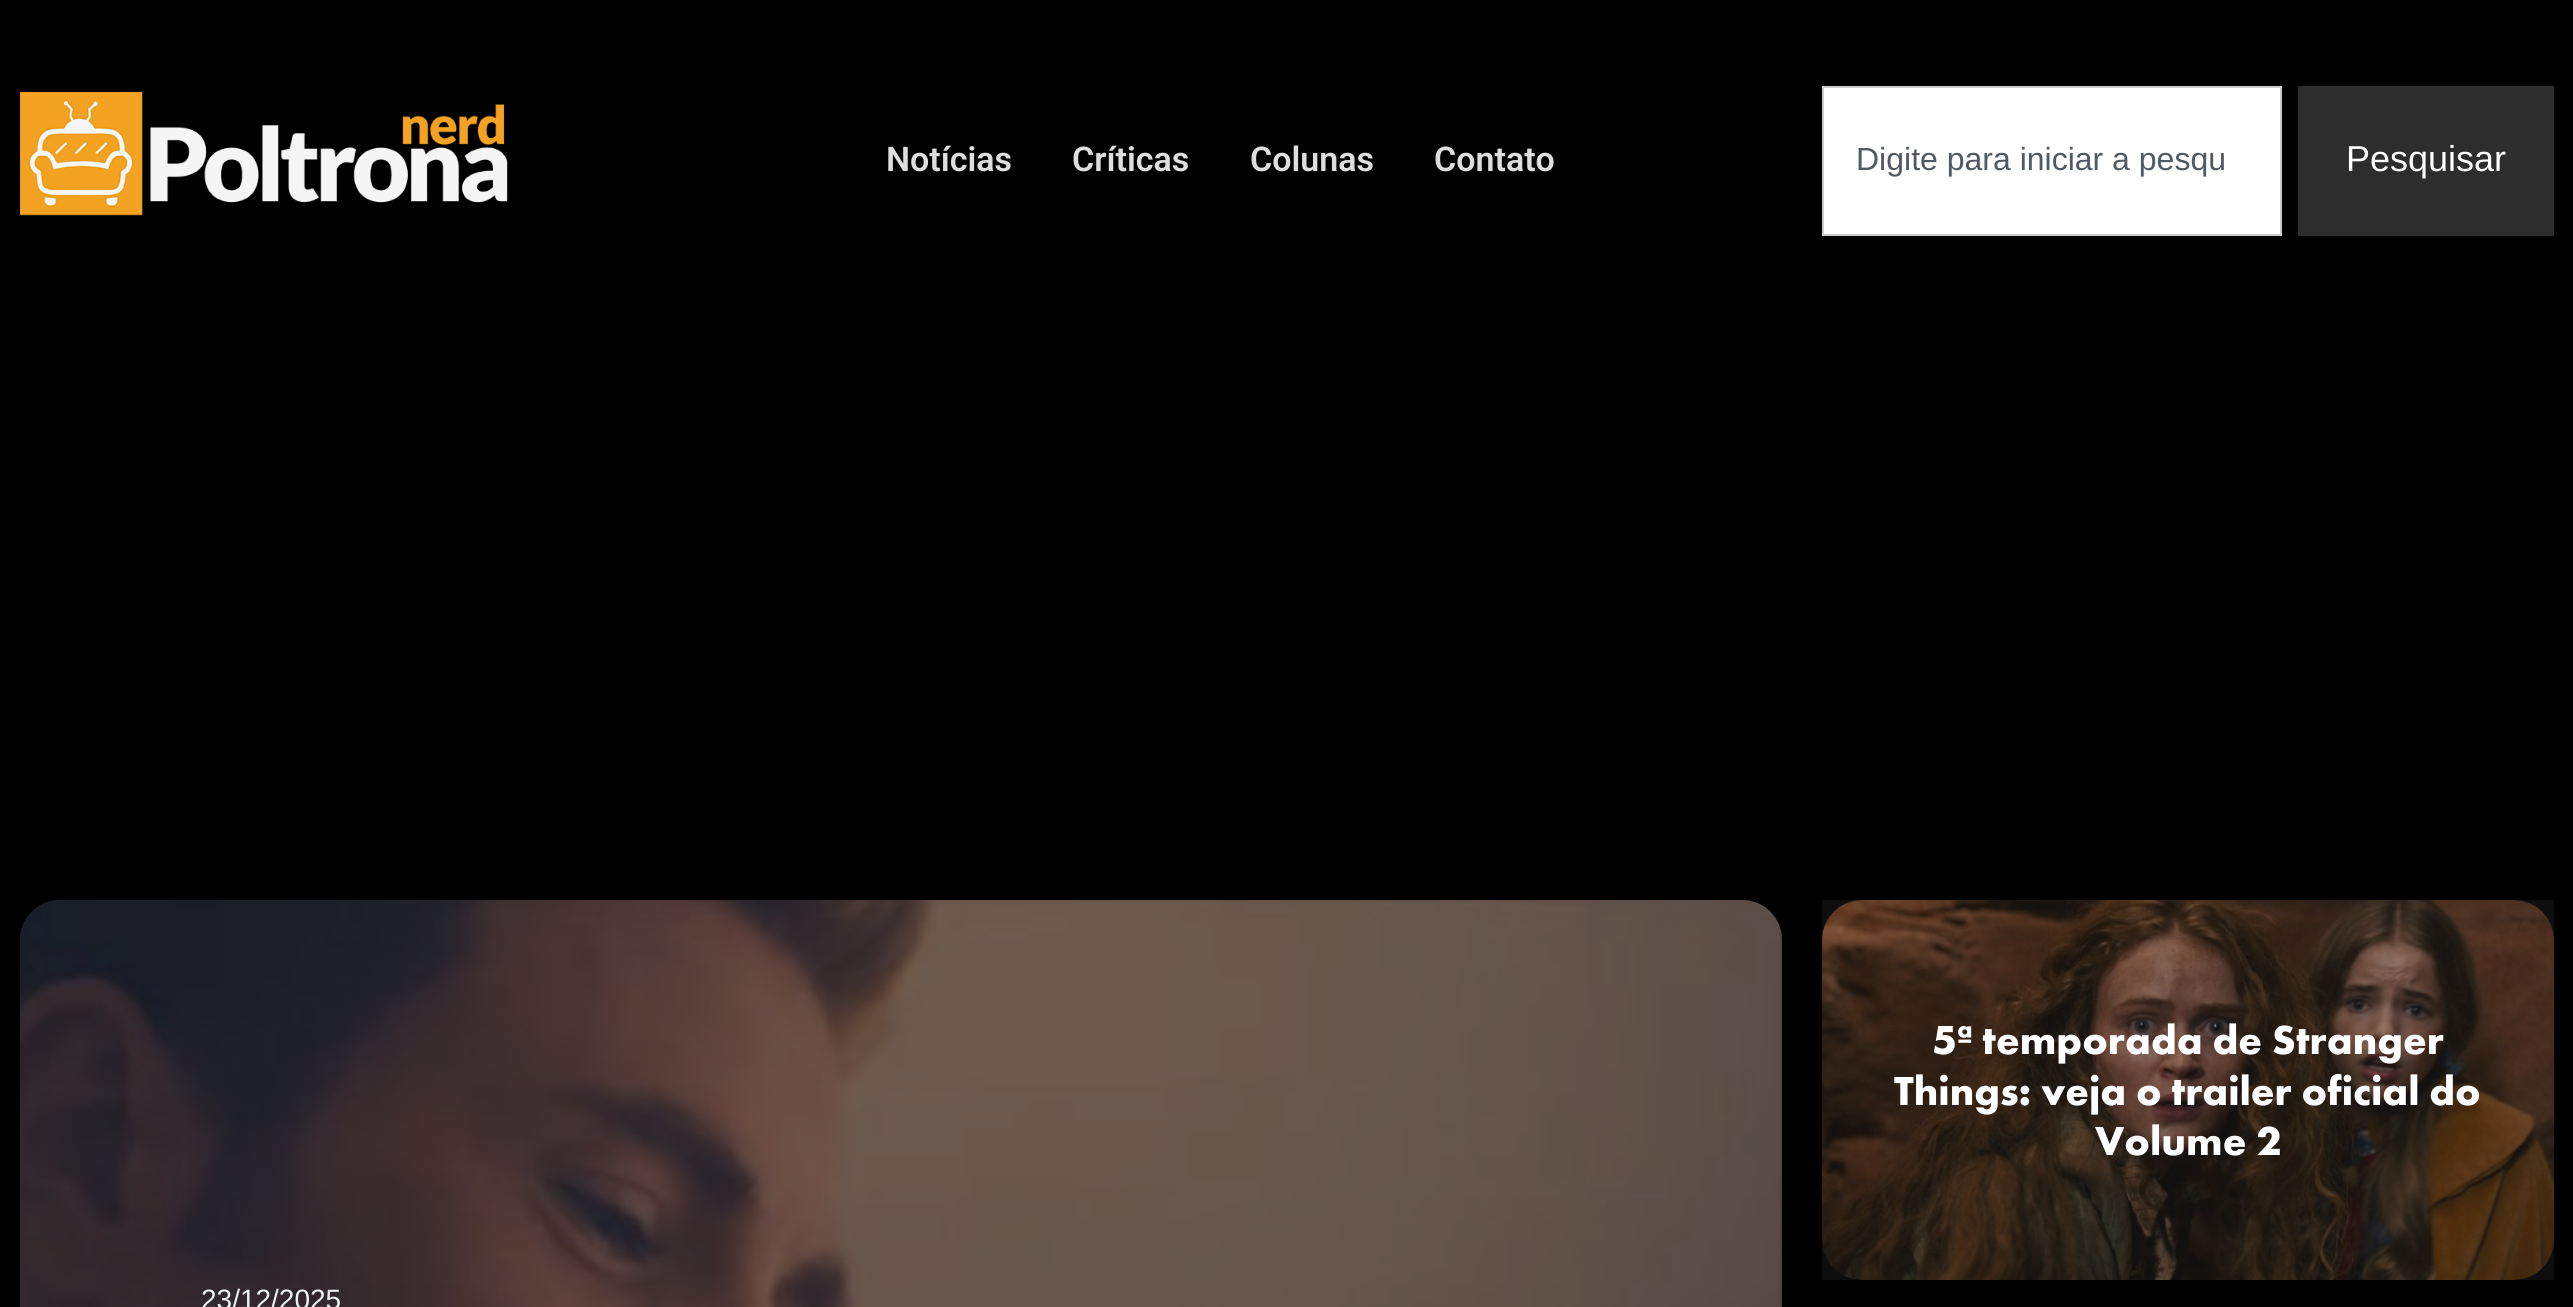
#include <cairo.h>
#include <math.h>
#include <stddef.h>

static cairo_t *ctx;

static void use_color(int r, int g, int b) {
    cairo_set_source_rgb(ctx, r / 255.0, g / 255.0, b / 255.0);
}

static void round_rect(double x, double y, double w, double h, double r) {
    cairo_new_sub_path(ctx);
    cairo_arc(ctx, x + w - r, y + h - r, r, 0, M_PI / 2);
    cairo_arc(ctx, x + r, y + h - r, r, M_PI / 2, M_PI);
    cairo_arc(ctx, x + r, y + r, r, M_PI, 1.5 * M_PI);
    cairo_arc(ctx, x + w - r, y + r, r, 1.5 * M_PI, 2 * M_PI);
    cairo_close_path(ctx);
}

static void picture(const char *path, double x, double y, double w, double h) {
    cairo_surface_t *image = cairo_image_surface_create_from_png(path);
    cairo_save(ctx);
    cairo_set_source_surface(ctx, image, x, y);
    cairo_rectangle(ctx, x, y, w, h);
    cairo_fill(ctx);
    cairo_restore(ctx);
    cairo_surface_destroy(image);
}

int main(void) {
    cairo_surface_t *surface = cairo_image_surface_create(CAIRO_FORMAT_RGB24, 2573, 1307);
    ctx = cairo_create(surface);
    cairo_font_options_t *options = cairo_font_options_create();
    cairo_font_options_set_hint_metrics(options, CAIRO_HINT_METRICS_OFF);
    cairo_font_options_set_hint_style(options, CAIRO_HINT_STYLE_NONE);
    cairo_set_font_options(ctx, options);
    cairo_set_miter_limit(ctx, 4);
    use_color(0, 0, 0);
    cairo_paint(ctx);
    picture("img1.png", 20, 92, 488, 124);
    cairo_select_font_face(ctx, "Roboto SemiBold", CAIRO_FONT_SLANT_NORMAL, CAIRO_FONT_WEIGHT_NORMAL);
    cairo_set_font_size(ctx, 34);
    use_color(222, 222, 222);
    cairo_move_to(ctx, 886, 171);
    cairo_show_text(ctx, "Notícias");
    cairo_move_to(ctx, 1072, 171);
    cairo_show_text(ctx, "Críticas");
    cairo_move_to(ctx, 1250, 171);
    cairo_show_text(ctx, "Colunas");
    cairo_move_to(ctx, 1434, 171);
    cairo_show_text(ctx, "Contato");
    use_color(255, 255, 255);
    cairo_rectangle(ctx, 1823, 87, 458, 148);
    cairo_fill_preserve(ctx);
    use_color(205, 205, 205);
    cairo_stroke(ctx);
    cairo_select_font_face(ctx, "Liberation Sans", CAIRO_FONT_SLANT_NORMAL, CAIRO_FONT_WEIGHT_NORMAL);
    cairo_set_font_size(ctx, 32);
    use_color(81, 89, 98);
    cairo_move_to(ctx, 1856, 170);
    cairo_show_text(ctx, "Digite para iniciar a pesqu");
    use_color(45, 45, 45);
    cairo_rectangle(ctx, 2298, 86, 256, 150);
    cairo_fill(ctx);
    cairo_set_font_size(ctx, 36);
    use_color(255, 255, 255);
    cairo_move_to(ctx, 2346, 171);
    cairo_show_text(ctx, "Pesquisar");
    use_color(14, 14, 14);
    cairo_rectangle(ctx, 1822, 900, 732, 380);
    cairo_fill(ctx);
    picture("img2.png", 1822, 900, 732, 380);
    cairo_select_font_face(ctx, "Futura PT", CAIRO_FONT_SLANT_NORMAL, CAIRO_FONT_WEIGHT_BOLD);
    cairo_set_font_size(ctx, 42);
    use_color(255, 255, 255);
    cairo_move_to(ctx, 1932, 1054);
    cairo_show_text(ctx, "5ª temporada de Stranger");
    cairo_move_to(ctx, 1894, 1105);
    cairo_show_text(ctx, "Things: veja o trailer oficial do");
    cairo_move_to(ctx, 2095, 1155);
    cairo_show_text(ctx, "Volume 2");
    picture("img3.png", 20, 900, 1762, 407);
    cairo_set_source_rgba(ctx, 0.169, 0.176, 0.259, 0.5);
    round_rect(20, 900, 1762, 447, 40);
    cairo_fill(ctx);
    picture("img4.png", 20, 900, 1762, 407);
    round_rect(20, 900, 1762, 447, 40);
    cairo_fill(ctx);
    cairo_select_font_face(ctx, "Liberation Sans", CAIRO_FONT_SLANT_NORMAL, CAIRO_FONT_WEIGHT_NORMAL);
    cairo_set_font_size(ctx, 28);
    use_color(237, 242, 244);
    cairo_move_to(ctx, 201, 1309);
    cairo_show_text(ctx, "23/12/2025");
    cairo_surface_write_to_png(surface, "result.png");
    cairo_font_options_destroy(options);
    cairo_destroy(ctx);
    cairo_surface_destroy(surface);
    return 0;
}
